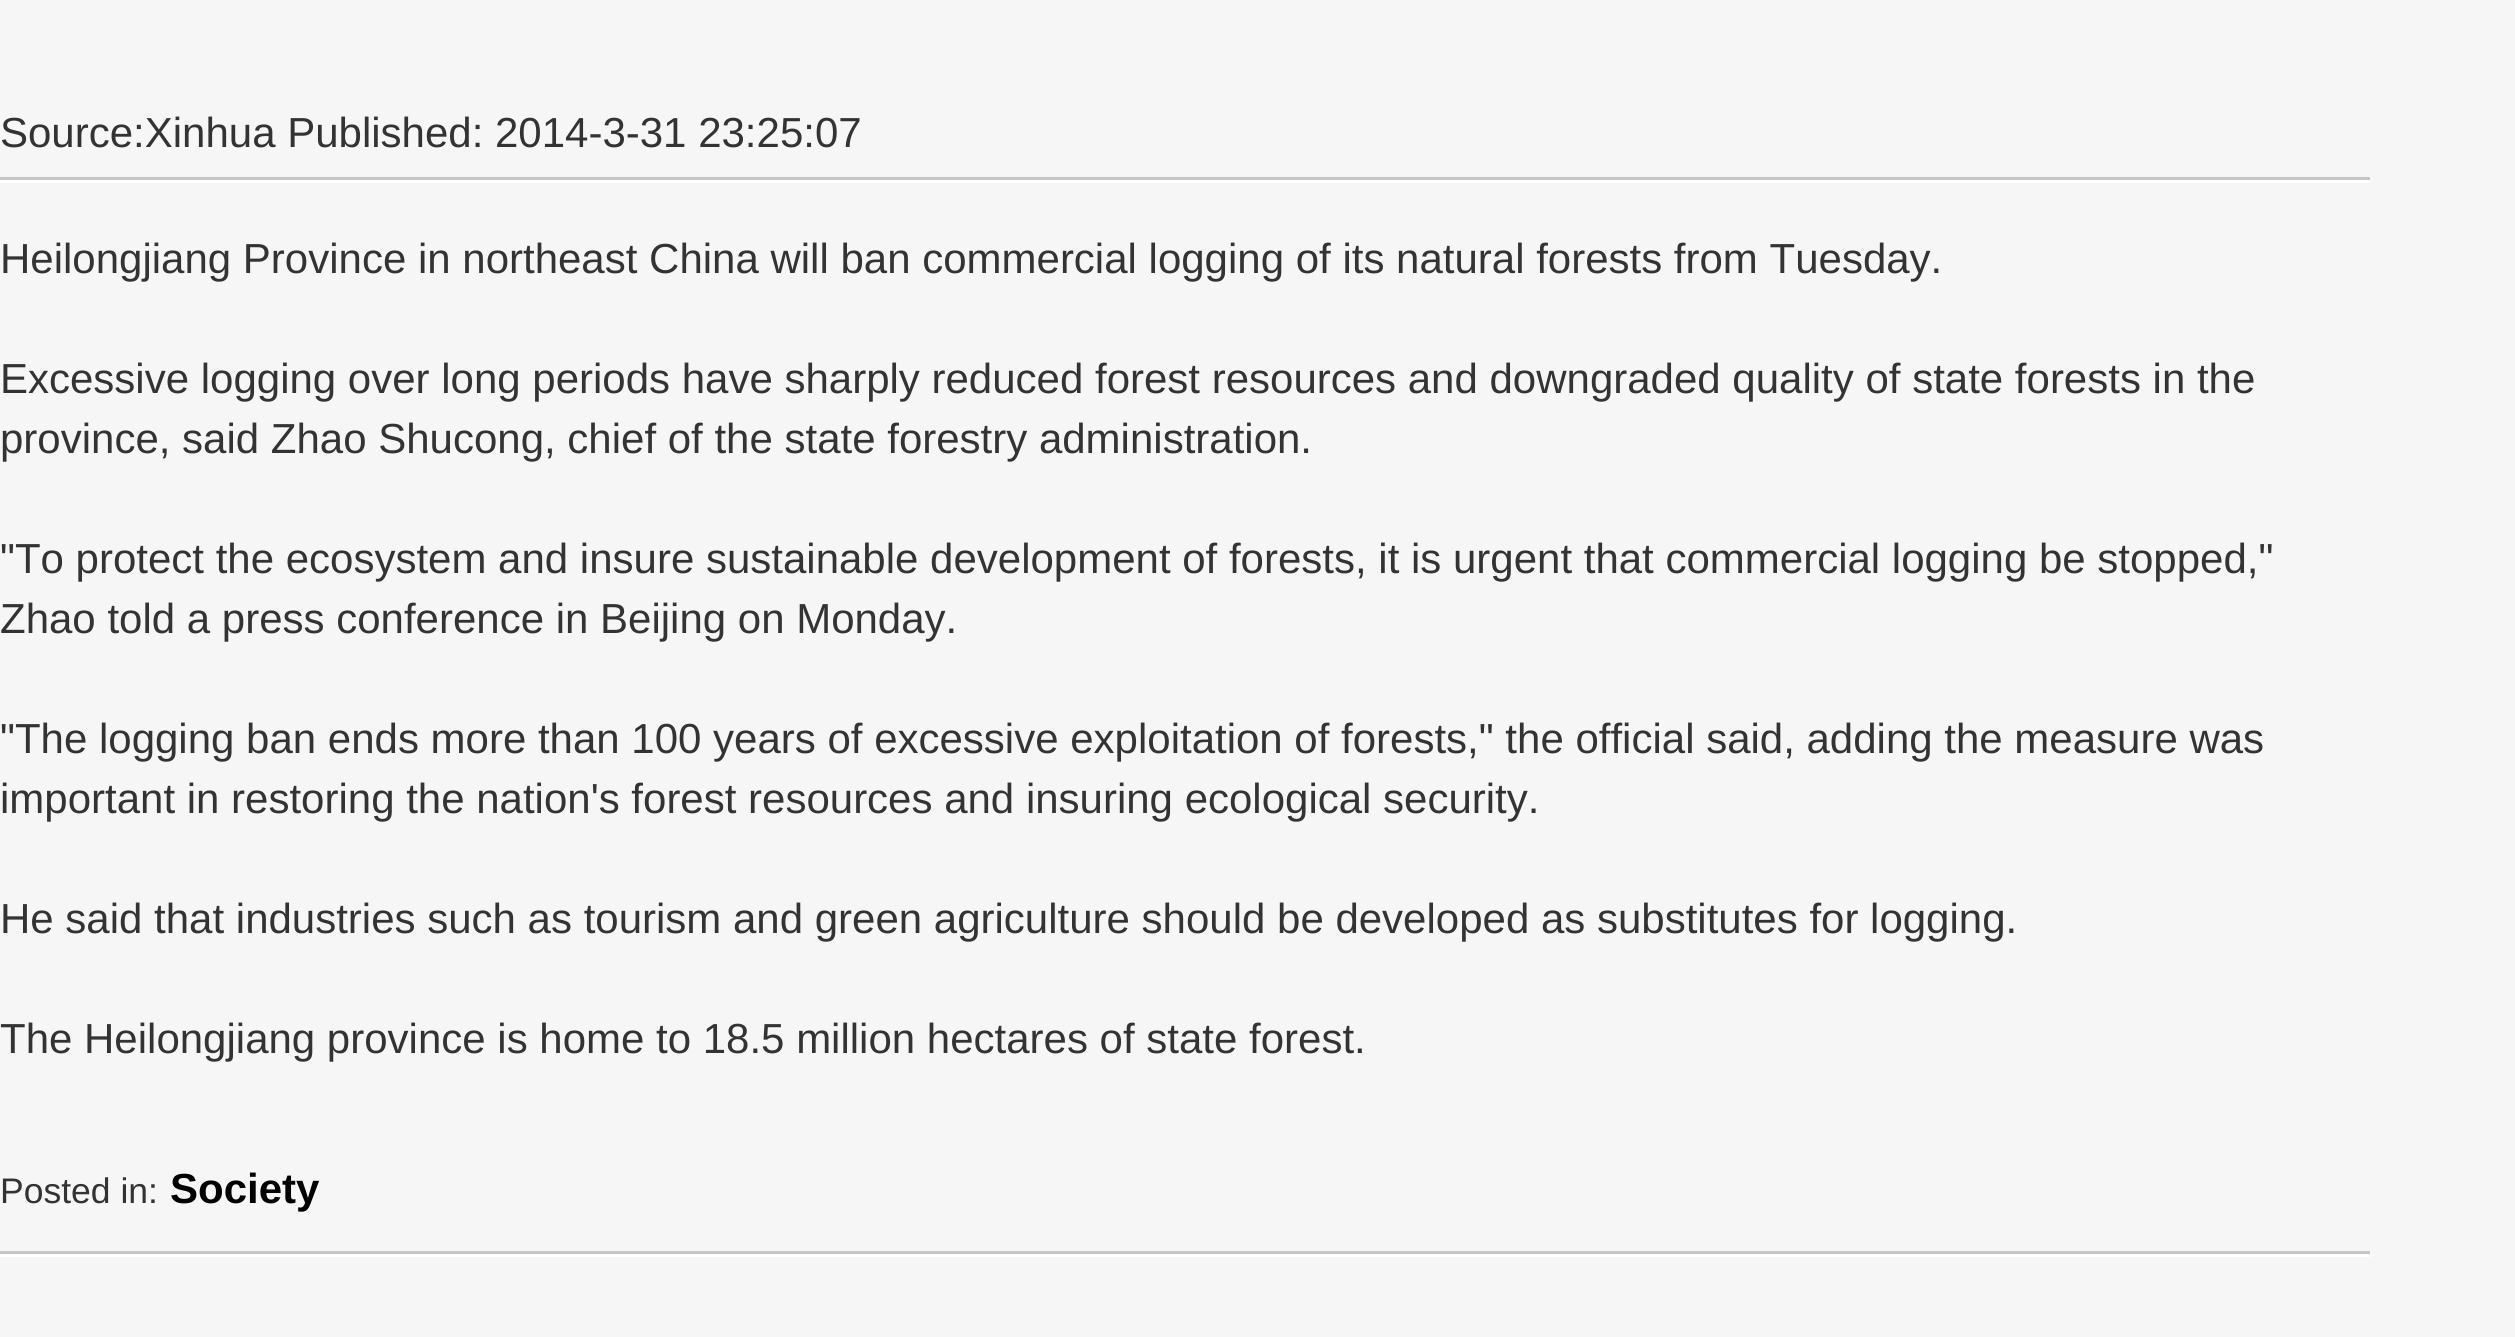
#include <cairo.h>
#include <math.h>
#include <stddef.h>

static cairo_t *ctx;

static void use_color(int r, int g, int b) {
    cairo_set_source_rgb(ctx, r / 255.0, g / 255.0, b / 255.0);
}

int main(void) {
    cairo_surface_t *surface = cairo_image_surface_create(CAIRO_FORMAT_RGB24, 2515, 1337);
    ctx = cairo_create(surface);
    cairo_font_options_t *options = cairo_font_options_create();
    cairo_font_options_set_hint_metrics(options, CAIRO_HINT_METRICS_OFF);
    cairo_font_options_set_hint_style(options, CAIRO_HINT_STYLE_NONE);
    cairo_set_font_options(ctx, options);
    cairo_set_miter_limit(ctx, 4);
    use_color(246, 246, 246);
    cairo_paint(ctx);
    cairo_select_font_face(ctx, "Liberation Sans", CAIRO_FONT_SLANT_NORMAL, CAIRO_FONT_WEIGHT_NORMAL);
    cairo_set_font_size(ctx, 42);
    use_color(51, 51, 51);
    cairo_move_to(ctx, 0, 147);
    cairo_show_text(ctx, "Source:Xinhua Published: 2014-3-31 23:25:07");
    use_color(197, 197, 197);
    cairo_rectangle(ctx, 0, 177, 2370, 3);
    cairo_fill(ctx);
    use_color(255, 255, 255);
    cairo_rectangle(ctx, 0, 180, 2370, 3);
    cairo_fill(ctx);
    use_color(51, 51, 51);
    cairo_move_to(ctx, 0, 273);
    cairo_show_text(ctx, "Heilongjiang Province in northeast China will ban commercial logging of its natural forests from Tuesday.");
    cairo_move_to(ctx, 0, 393);
    cairo_show_text(ctx, "Excessive logging over long periods have sharply reduced forest resources and downgraded quality of state forests in the");
    cairo_move_to(ctx, 0, 453);
    cairo_show_text(ctx, "province, said Zhao Shucong, chief of the state forestry administration.");
    cairo_move_to(ctx, 0, 573);
    cairo_show_text(ctx, "\"To protect the ecosystem and insure sustainable development of forests, it is urgent that commercial logging be stopped,\"");
    cairo_move_to(ctx, 0, 633);
    cairo_show_text(ctx, "Zhao told a press conference in Beijing on Monday.");
    cairo_move_to(ctx, 0, 753);
    cairo_show_text(ctx, "\"The logging ban ends more than 100 years of excessive exploitation of forests,\" the official said, adding the measure was");
    cairo_move_to(ctx, 0, 813);
    cairo_show_text(ctx, "important in restoring the nation's forest resources and insuring ecological security.");
    cairo_move_to(ctx, 0, 933);
    cairo_show_text(ctx, "He said that industries such as tourism and green agriculture should be developed as substitutes for logging.");
    cairo_move_to(ctx, 0, 1053);
    cairo_show_text(ctx, "The Heilongjiang province is home to 18.5 million hectares of state forest.");
    cairo_set_font_size(ctx, 35.5);
    cairo_move_to(ctx, 0, 1203);
    cairo_show_text(ctx, "Posted in:");
    cairo_select_font_face(ctx, "Liberation Sans", CAIRO_FONT_SLANT_NORMAL, CAIRO_FONT_WEIGHT_BOLD);
    cairo_set_font_size(ctx, 42);
    use_color(0, 0, 0);
    cairo_move_to(ctx, 170, 1203);
    cairo_show_text(ctx, "Society");
    use_color(197, 197, 197);
    cairo_rectangle(ctx, 0, 1251, 2370, 3);
    cairo_fill(ctx);
    use_color(255, 255, 255);
    cairo_rectangle(ctx, 0, 1254, 2370, 3);
    cairo_fill(ctx);
    cairo_surface_write_to_png(surface, "result.png");
    cairo_font_options_destroy(options);
    cairo_destroy(ctx);
    cairo_surface_destroy(surface);
    return 0;
}
